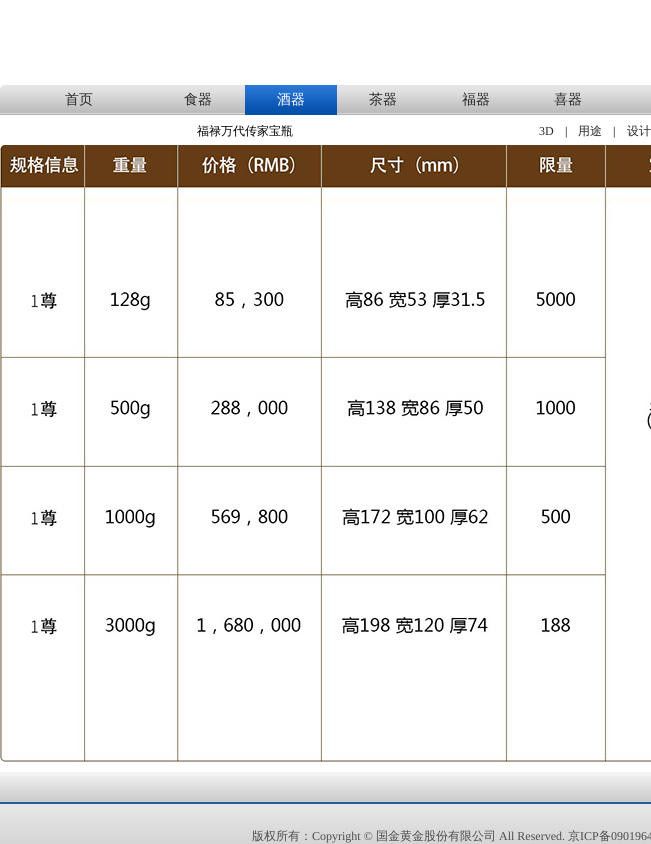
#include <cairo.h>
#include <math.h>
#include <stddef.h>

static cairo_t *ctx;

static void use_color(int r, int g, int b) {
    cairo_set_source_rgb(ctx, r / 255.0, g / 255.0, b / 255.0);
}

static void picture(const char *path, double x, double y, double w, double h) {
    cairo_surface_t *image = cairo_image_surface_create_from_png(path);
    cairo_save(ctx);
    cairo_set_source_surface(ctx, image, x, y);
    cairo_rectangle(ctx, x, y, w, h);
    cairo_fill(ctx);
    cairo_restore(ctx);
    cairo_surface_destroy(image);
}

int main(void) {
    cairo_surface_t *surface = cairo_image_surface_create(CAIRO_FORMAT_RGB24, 651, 844);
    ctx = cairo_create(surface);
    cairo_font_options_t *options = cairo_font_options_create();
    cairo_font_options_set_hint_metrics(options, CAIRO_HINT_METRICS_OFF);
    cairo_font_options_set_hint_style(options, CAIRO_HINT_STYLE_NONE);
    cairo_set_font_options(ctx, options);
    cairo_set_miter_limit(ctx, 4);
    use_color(255, 255, 255);
    cairo_paint(ctx);
    picture("img1.png", 0, 85, 6, 30);
    picture("img2.png", 6, 85, 645, 30);
    cairo_select_font_face(ctx, "WenQuanYi Zen Hei Medium", CAIRO_FONT_SLANT_NORMAL, CAIRO_FONT_WEIGHT_NORMAL);
    cairo_set_font_size(ctx, 14);
    use_color(40, 40, 40);
    cairo_move_to(ctx, 65, 104);
    cairo_show_text(ctx, "首页");
    cairo_move_to(ctx, 184, 104);
    cairo_show_text(ctx, "食器");
    picture("img3.png", 245, 85, 92, 30);
    use_color(255, 255, 255);
    cairo_move_to(ctx, 277, 104);
    cairo_show_text(ctx, "酒器");
    use_color(40, 40, 40);
    cairo_move_to(ctx, 369, 104);
    cairo_show_text(ctx, "茶器");
    cairo_move_to(ctx, 462, 104);
    cairo_show_text(ctx, "福器");
    cairo_move_to(ctx, 554, 104);
    cairo_show_text(ctx, "喜器");
    cairo_set_font_size(ctx, 12);
    use_color(0, 0, 0);
    cairo_move_to(ctx, 197, 135);
    cairo_show_text(ctx, "福禄万代传家宝瓶");
    cairo_select_font_face(ctx, "Liberation Serif", CAIRO_FONT_SLANT_NORMAL, CAIRO_FONT_WEIGHT_NORMAL);
    use_color(40, 40, 40);
    cairo_move_to(ctx, 539, 135);
    cairo_show_text(ctx, "3D");
    use_color(0, 0, 0);
    cairo_move_to(ctx, 565, 135);
    cairo_show_text(ctx, "|");
    cairo_select_font_face(ctx, "WenQuanYi Zen Hei Medium", CAIRO_FONT_SLANT_NORMAL, CAIRO_FONT_WEIGHT_NORMAL);
    use_color(40, 40, 40);
    cairo_move_to(ctx, 578, 135);
    cairo_show_text(ctx, "用途");
    cairo_select_font_face(ctx, "Liberation Serif", CAIRO_FONT_SLANT_NORMAL, CAIRO_FONT_WEIGHT_NORMAL);
    use_color(0, 0, 0);
    cairo_move_to(ctx, 613, 135);
    cairo_show_text(ctx, "|");
    cairo_select_font_face(ctx, "WenQuanYi Zen Hei Medium", CAIRO_FONT_SLANT_NORMAL, CAIRO_FONT_WEIGHT_NORMAL);
    use_color(40, 40, 40);
    cairo_move_to(ctx, 627, 135);
    cairo_show_text(ctx, "设计");
    picture("img4.png", 0, 145, 651, 617);
    picture("img5.png", 0, 772, 651, 72);
    picture("img6.png", 0, 776, 651, 26);
    use_color(40, 91, 154);
    cairo_rectangle(ctx, 0, 802, 651, 2);
    cairo_fill(ctx);
    use_color(77, 77, 77);
    cairo_move_to(ctx, 252, 840);
    cairo_show_text(ctx, "版权所有：");
    cairo_select_font_face(ctx, "Liberation Serif", CAIRO_FONT_SLANT_NORMAL, CAIRO_FONT_WEIGHT_NORMAL);
    cairo_move_to(ctx, 312, 840);
    cairo_show_text(ctx, "Copyright ©");
    cairo_select_font_face(ctx, "WenQuanYi Zen Hei Medium", CAIRO_FONT_SLANT_NORMAL, CAIRO_FONT_WEIGHT_NORMAL);
    cairo_move_to(ctx, 376, 840);
    cairo_show_text(ctx, "国金黄金股份有限公司");
    cairo_select_font_face(ctx, "Liberation Serif", CAIRO_FONT_SLANT_NORMAL, CAIRO_FONT_WEIGHT_NORMAL);
    cairo_move_to(ctx, 499, 840);
    cairo_show_text(ctx, "All Reserved.");
    cairo_select_font_face(ctx, "WenQuanYi Zen Hei Medium", CAIRO_FONT_SLANT_NORMAL, CAIRO_FONT_WEIGHT_NORMAL);
    cairo_move_to(ctx, 568, 840);
    cairo_show_text(ctx, "京");
    cairo_select_font_face(ctx, "Liberation Serif", CAIRO_FONT_SLANT_NORMAL, CAIRO_FONT_WEIGHT_NORMAL);
    cairo_move_to(ctx, 580, 840);
    cairo_show_text(ctx, "ICP");
    cairo_select_font_face(ctx, "WenQuanYi Zen Hei Medium", CAIRO_FONT_SLANT_NORMAL, CAIRO_FONT_WEIGHT_NORMAL);
    cairo_move_to(ctx, 599, 840);
    cairo_show_text(ctx, "备");
    cairo_select_font_face(ctx, "Liberation Serif", CAIRO_FONT_SLANT_NORMAL, CAIRO_FONT_WEIGHT_NORMAL);
    cairo_move_to(ctx, 611, 840);
    cairo_show_text(ctx, "0901964");
    cairo_surface_write_to_png(surface, "result.png");
    cairo_font_options_destroy(options);
    cairo_destroy(ctx);
    cairo_surface_destroy(surface);
    return 0;
}
